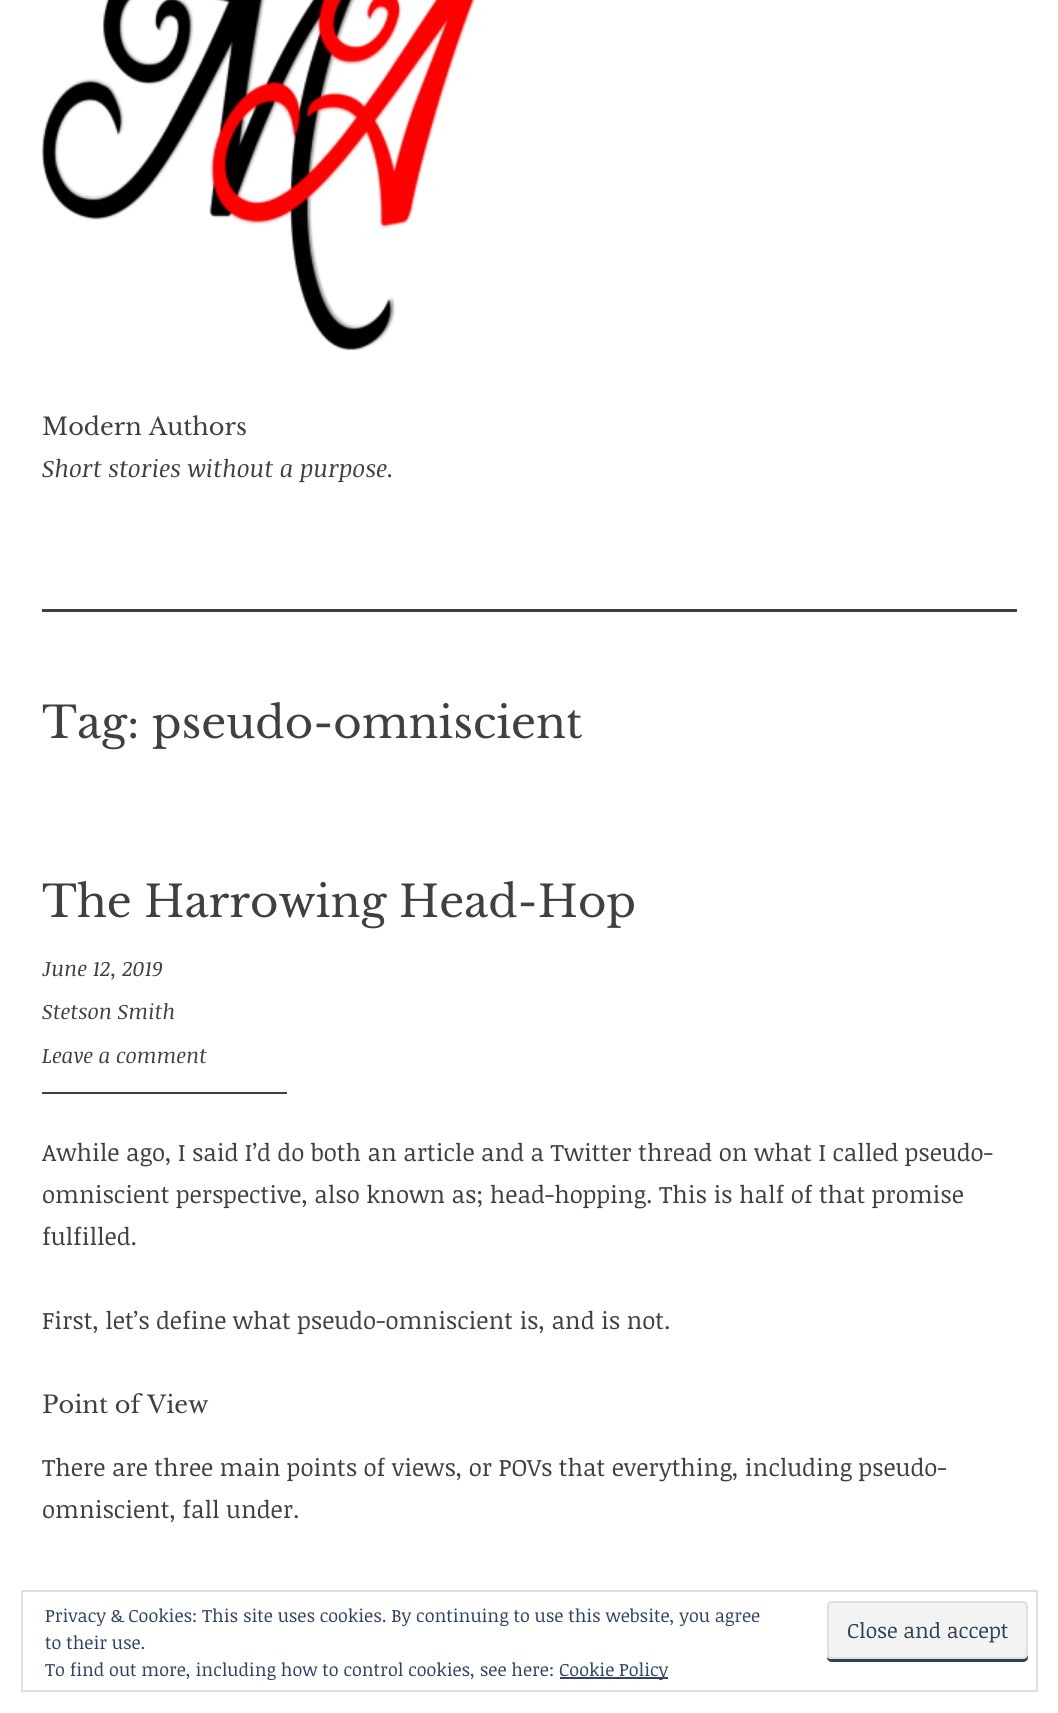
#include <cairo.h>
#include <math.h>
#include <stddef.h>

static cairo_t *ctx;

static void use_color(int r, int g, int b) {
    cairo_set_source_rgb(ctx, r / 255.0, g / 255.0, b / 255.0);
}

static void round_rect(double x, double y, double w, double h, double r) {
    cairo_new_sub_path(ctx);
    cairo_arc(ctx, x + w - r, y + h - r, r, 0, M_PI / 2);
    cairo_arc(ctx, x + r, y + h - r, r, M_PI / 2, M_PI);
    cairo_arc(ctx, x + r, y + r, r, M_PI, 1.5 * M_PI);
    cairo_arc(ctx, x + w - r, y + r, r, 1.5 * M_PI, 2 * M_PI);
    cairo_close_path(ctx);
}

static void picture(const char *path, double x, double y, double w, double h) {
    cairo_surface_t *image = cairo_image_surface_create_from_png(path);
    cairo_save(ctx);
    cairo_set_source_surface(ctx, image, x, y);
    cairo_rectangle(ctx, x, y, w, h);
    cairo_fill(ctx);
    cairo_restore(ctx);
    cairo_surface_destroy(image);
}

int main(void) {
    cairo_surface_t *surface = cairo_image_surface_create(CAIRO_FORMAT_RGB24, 1058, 1713);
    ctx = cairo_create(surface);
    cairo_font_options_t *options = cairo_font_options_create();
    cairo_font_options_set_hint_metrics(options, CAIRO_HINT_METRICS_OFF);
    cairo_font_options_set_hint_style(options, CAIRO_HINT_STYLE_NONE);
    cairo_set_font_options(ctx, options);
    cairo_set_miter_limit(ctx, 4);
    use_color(255, 255, 255);
    cairo_paint(ctx);
    picture("img1.png", 42, 0, 434, 351);
    cairo_select_font_face(ctx, "Libre Baskerville", CAIRO_FONT_SLANT_NORMAL, CAIRO_FONT_WEIGHT_NORMAL);
    cairo_set_font_size(ctx, 24);
    use_color(64, 64, 64);
    cairo_move_to(ctx, 42, 435);
    cairo_show_text(ctx, "Modern Authors");
    cairo_select_font_face(ctx, "Noticia Text", CAIRO_FONT_SLANT_ITALIC, CAIRO_FONT_WEIGHT_NORMAL);
    cairo_move_to(ctx, 42, 477);
    cairo_show_text(ctx, "Short stories without a purpose.");
    cairo_rectangle(ctx, 42, 609, 975, 3);
    cairo_fill(ctx);
    cairo_select_font_face(ctx, "Libre Baskerville", CAIRO_FONT_SLANT_NORMAL, CAIRO_FONT_WEIGHT_NORMAL);
    cairo_set_font_size(ctx, 43.5);
    cairo_move_to(ctx, 42, 738);
    cairo_show_text(ctx, "Tag: pseudo-omniscient");
    cairo_move_to(ctx, 42, 917);
    cairo_show_text(ctx, "The Harrowing Head-Hop");
    cairo_select_font_face(ctx, "Noticia Text", CAIRO_FONT_SLANT_ITALIC, CAIRO_FONT_WEIGHT_NORMAL);
    cairo_set_font_size(ctx, 21);
    cairo_move_to(ctx, 42, 976);
    cairo_show_text(ctx, "June 12, 2019");
    cairo_move_to(ctx, 42, 1019);
    cairo_show_text(ctx, "Stetson Smith");
    cairo_move_to(ctx, 42, 1063);
    cairo_show_text(ctx, "Leave a comment");
    cairo_rectangle(ctx, 42, 1092, 245, 2);
    cairo_fill(ctx);
    cairo_select_font_face(ctx, "Noticia Text", CAIRO_FONT_SLANT_NORMAL, CAIRO_FONT_WEIGHT_NORMAL);
    cairo_set_font_size(ctx, 24);
    cairo_move_to(ctx, 42, 1161);
    cairo_show_text(ctx, "Awhile ago, I said I’d do both an article and a Twitter thread on what I called pseudo-");
    cairo_move_to(ctx, 42, 1203);
    cairo_show_text(ctx, "omniscient perspective, also known as; head-hopping. This is half of that promise");
    cairo_move_to(ctx, 42, 1245);
    cairo_show_text(ctx, "fulfilled.");
    cairo_move_to(ctx, 42, 1329);
    cairo_show_text(ctx, "First, let’s define what pseudo-omniscient is, and is not.");
    cairo_select_font_face(ctx, "Libre Baskerville", CAIRO_FONT_SLANT_NORMAL, CAIRO_FONT_WEIGHT_NORMAL);
    cairo_move_to(ctx, 42, 1413);
    cairo_show_text(ctx, "Point of View");
    cairo_select_font_face(ctx, "Noticia Text", CAIRO_FONT_SLANT_NORMAL, CAIRO_FONT_WEIGHT_NORMAL);
    cairo_move_to(ctx, 42, 1476);
    cairo_show_text(ctx, "There are three main points of views, or POVs that everything, including pseudo-");
    cairo_move_to(ctx, 42, 1518);
    cairo_show_text(ctx, "omniscient, fall under.");
    cairo_rectangle(ctx, 22, 1591, 1015, 100);
    use_color(222, 222, 222);
    cairo_stroke(ctx);
    cairo_set_font_size(ctx, 18);
    use_color(46, 68, 103);
    cairo_move_to(ctx, 45, 1622);
    cairo_show_text(ctx, "Privacy & Cookies: This site uses cookies. By continuing to use this website, you agree");
    cairo_move_to(ctx, 45, 1649);
    cairo_show_text(ctx, "to their use.");
    use_color(46, 68, 83);
    cairo_new_path(ctx);
    cairo_move_to(ctx, 827, 1657);
    cairo_curve_to(ctx, 827, 1660, 829, 1662, 832, 1662);
    cairo_line_to(ctx, 1023, 1662);
    cairo_curve_to(ctx, 1026, 1662, 1028, 1660, 1028, 1657);
    cairo_line_to(ctx, 1028, 1609);
    cairo_line_to(ctx, 1028, 1607);
    cairo_line_to(ctx, 1028, 1654);
    cairo_curve_to(ctx, 1028, 1657, 1025, 1659, 1023, 1659);
    cairo_line_to(ctx, 831, 1659);
    cairo_curve_to(ctx, 829, 1659, 828, 1658, 827, 1657);
    cairo_close_path(ctx);
    cairo_fill(ctx);
    use_color(243, 243, 243);
    round_rect(828, 1602, 199, 56, 4);
    cairo_fill_preserve(ctx);
    use_color(222, 222, 222);
    cairo_stroke(ctx);
    cairo_set_font_size(ctx, 21);
    use_color(46, 68, 83);
    cairo_move_to(ctx, 847, 1638);
    cairo_show_text(ctx, "Close and accept");
    cairo_set_font_size(ctx, 18);
    use_color(46, 68, 103);
    cairo_move_to(ctx, 45, 1676);
    cairo_show_text(ctx, "To find out more, including how to control cookies, see here:");
    cairo_rectangle(ctx, 560, 1677, 108, 2);
    cairo_fill(ctx);
    cairo_move_to(ctx, 559, 1676);
    cairo_show_text(ctx, "Cookie Policy");
    cairo_surface_write_to_png(surface, "result.png");
    cairo_font_options_destroy(options);
    cairo_destroy(ctx);
    cairo_surface_destroy(surface);
    return 0;
}
